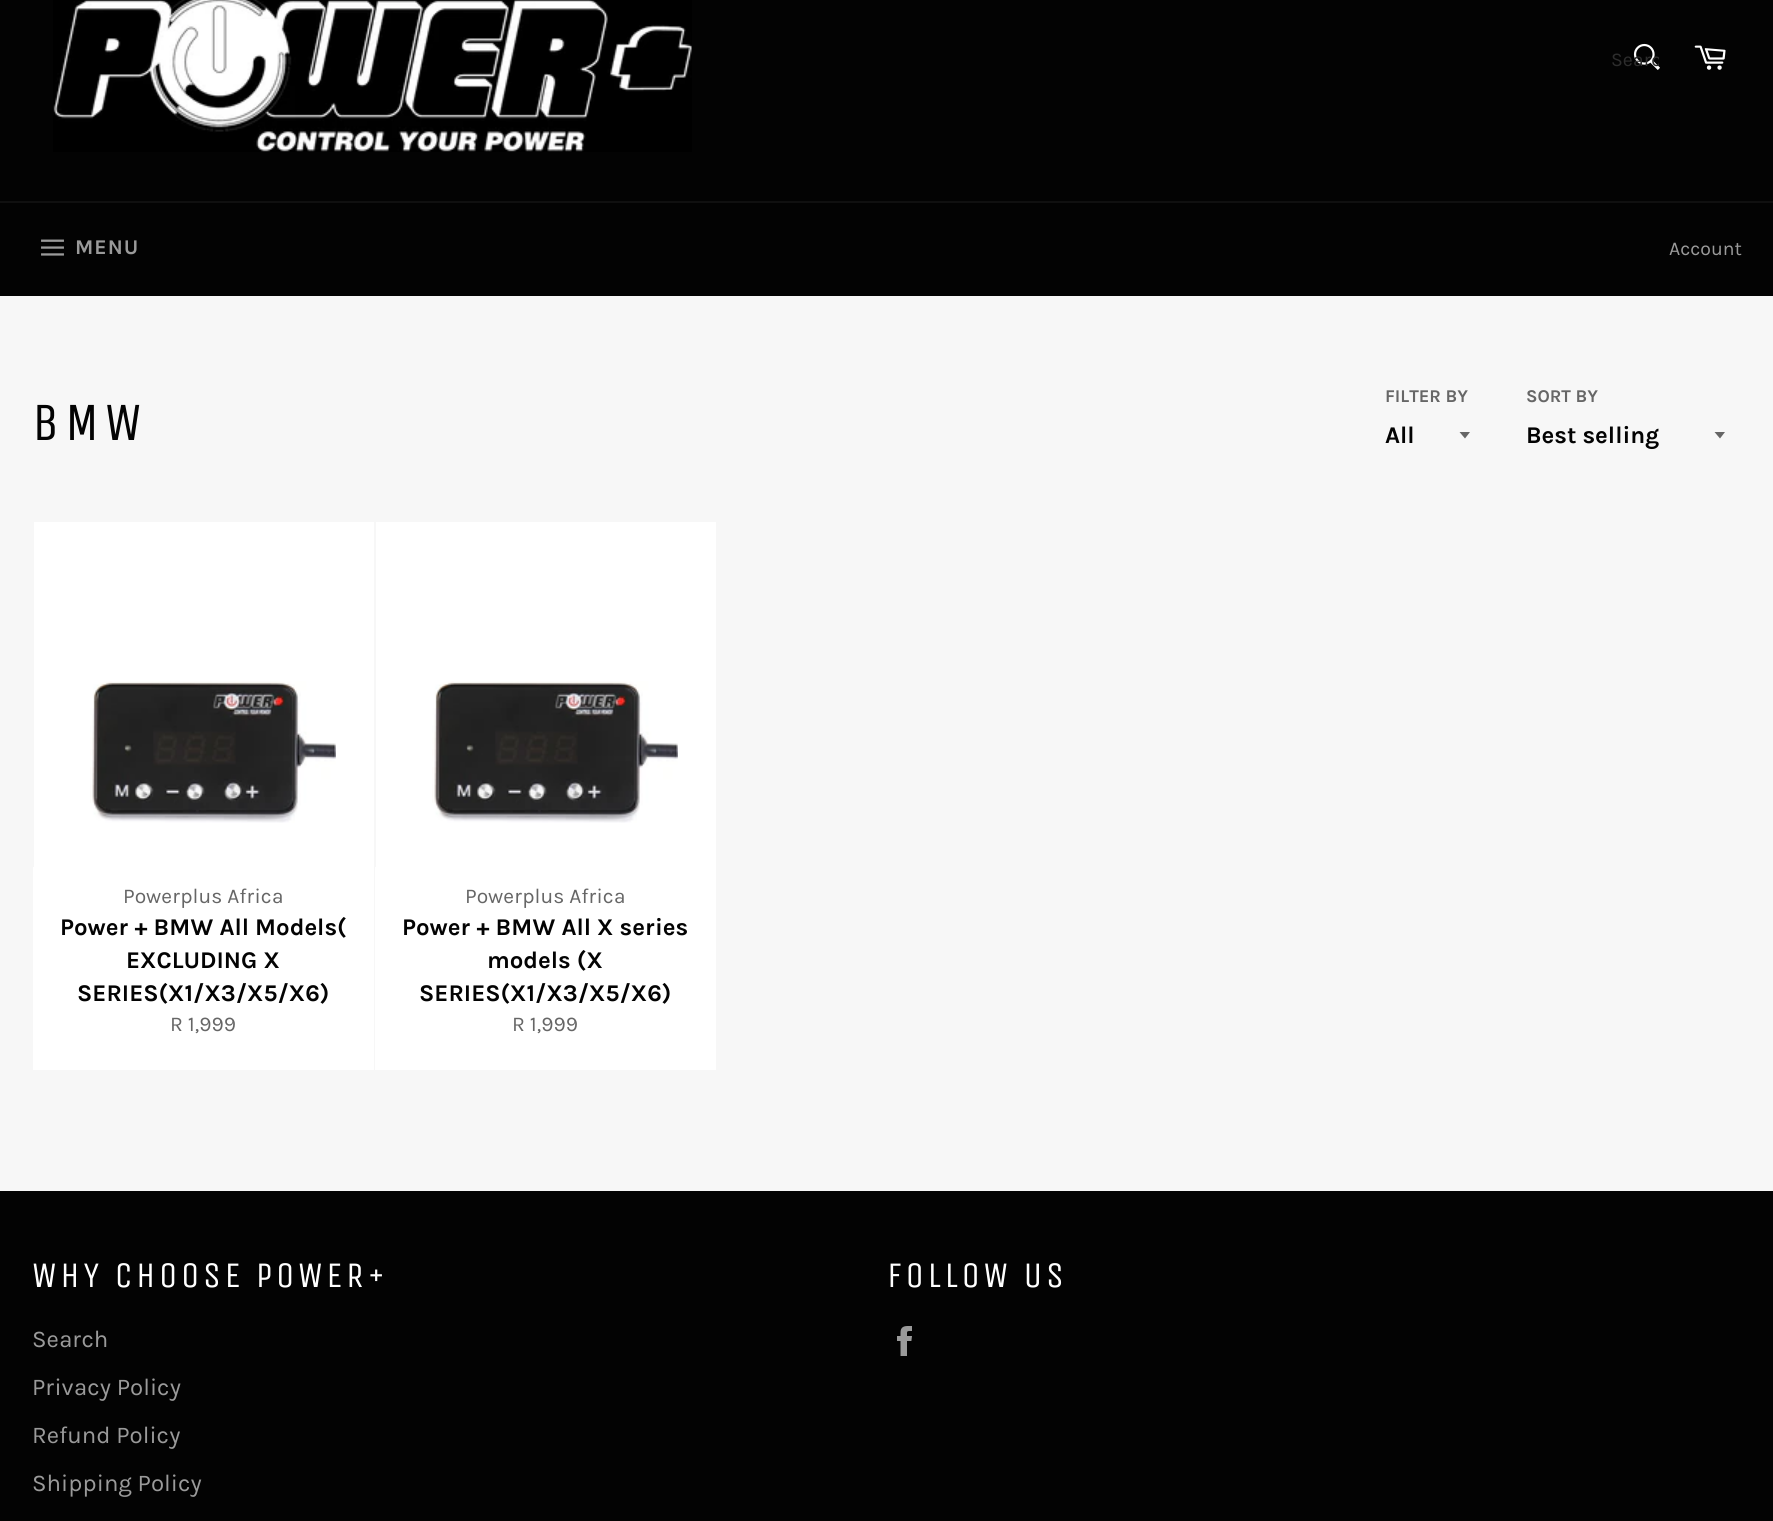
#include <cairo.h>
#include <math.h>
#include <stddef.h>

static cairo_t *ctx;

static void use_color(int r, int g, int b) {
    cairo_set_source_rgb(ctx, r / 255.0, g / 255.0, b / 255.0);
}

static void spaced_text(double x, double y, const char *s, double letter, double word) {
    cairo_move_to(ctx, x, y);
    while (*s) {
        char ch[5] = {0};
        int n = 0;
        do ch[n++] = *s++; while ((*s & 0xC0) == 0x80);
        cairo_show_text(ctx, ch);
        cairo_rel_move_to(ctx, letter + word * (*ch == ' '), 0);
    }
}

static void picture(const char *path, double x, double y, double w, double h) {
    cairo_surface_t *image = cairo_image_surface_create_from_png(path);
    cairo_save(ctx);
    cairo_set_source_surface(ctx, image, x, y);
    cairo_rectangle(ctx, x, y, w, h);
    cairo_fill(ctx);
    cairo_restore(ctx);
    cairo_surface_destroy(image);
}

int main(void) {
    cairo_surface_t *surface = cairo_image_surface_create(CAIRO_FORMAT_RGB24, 1773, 1521);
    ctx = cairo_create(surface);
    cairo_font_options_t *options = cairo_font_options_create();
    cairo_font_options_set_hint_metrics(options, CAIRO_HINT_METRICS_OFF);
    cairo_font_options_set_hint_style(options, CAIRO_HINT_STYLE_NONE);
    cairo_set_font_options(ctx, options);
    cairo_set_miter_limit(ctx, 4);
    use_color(247, 247, 247);
    cairo_paint(ctx);
    use_color(3, 3, 3);
    cairo_rectangle(ctx, 0, 0, 1773, 201);
    cairo_fill(ctx);
    picture("img1.png", 53, 0, 639, 152);
    picture("img2.png", 1633, 43, 27, 27);
    cairo_save(ctx);
    cairo_rectangle(ctx, 1611, 48, 48, 23);
    cairo_clip(ctx);
    cairo_select_font_face(ctx, "Karla", CAIRO_FONT_SLANT_NORMAL, CAIRO_FONT_WEIGHT_NORMAL);
    cairo_set_font_size(ctx, 19.5);
    use_color(45, 45, 45);
    cairo_move_to(ctx, 1611, 66);
    cairo_show_text(ctx, "Searc");
    cairo_restore(ctx);
    picture("img3.png", 1694, 45, 32, 25);
    cairo_rectangle(ctx, 0, 203, 1773, 93);
    cairo_fill(ctx);
    use_color(16, 16, 16);
    cairo_rectangle(ctx, 0, 201, 1773, 2);
    cairo_fill(ctx);
    picture("img4.png", 41, 239, 23, 17);
    cairo_select_font_face(ctx, "Karla", CAIRO_FONT_SLANT_NORMAL, CAIRO_FONT_WEIGHT_BOLD);
    cairo_set_font_size(ctx, 21);
    use_color(154, 154, 154);
    spaced_text(75, 254, "MENU", 1, 0);
    cairo_select_font_face(ctx, "Karla", CAIRO_FONT_SLANT_NORMAL, CAIRO_FONT_WEIGHT_NORMAL);
    cairo_set_font_size(ctx, 19.5);
    cairo_move_to(ctx, 1669, 255);
    cairo_show_text(ctx, "Account");
    cairo_select_font_face(ctx, "Unica One", CAIRO_FONT_SLANT_NORMAL, CAIRO_FONT_WEIGHT_NORMAL);
    cairo_set_font_size(ctx, 54);
    use_color(3, 3, 3);
    spaced_text(32, 440, "BMW", 5.5, 0);
    cairo_select_font_face(ctx, "Karla", CAIRO_FONT_SLANT_NORMAL, CAIRO_FONT_WEIGHT_BOLD);
    cairo_set_font_size(ctx, 18);
    use_color(102, 102, 102);
    cairo_move_to(ctx, 1385, 402);
    cairo_show_text(ctx, "FILTER BY");
    cairo_new_path(ctx);
    cairo_move_to(ctx, 1459.5, 432);
    cairo_line_to(ctx, 1465, 438.5);
    cairo_line_to(ctx, 1470, 432);
    cairo_close_path(ctx);
    cairo_fill(ctx);
    cairo_set_font_size(ctx, 24);
    use_color(3, 3, 3);
    cairo_move_to(ctx, 1385, 443);
    cairo_show_text(ctx, "All");
    cairo_set_font_size(ctx, 18);
    use_color(102, 102, 102);
    cairo_move_to(ctx, 1526, 402);
    cairo_show_text(ctx, "SORT BY");
    cairo_new_path(ctx);
    cairo_move_to(ctx, 1714.5, 432);
    cairo_line_to(ctx, 1720, 438.5);
    cairo_line_to(ctx, 1725, 432);
    cairo_close_path(ctx);
    cairo_fill(ctx);
    cairo_set_font_size(ctx, 24);
    use_color(3, 3, 3);
    cairo_move_to(ctx, 1526, 443);
    cairo_show_text(ctx, "Best selling");
    use_color(255, 255, 255);
    cairo_rectangle(ctx, 34, 522, 340, 345);
    cairo_fill(ctx);
    picture("img5.png", 90, 681, 246, 142);
    cairo_rectangle(ctx, 33, 867, 341, 203);
    cairo_fill(ctx);
    cairo_select_font_face(ctx, "Karla", CAIRO_FONT_SLANT_NORMAL, CAIRO_FONT_WEIGHT_NORMAL);
    cairo_set_font_size(ctx, 21);
    use_color(102, 102, 102);
    cairo_move_to(ctx, 123, 903);
    cairo_show_text(ctx, "Powerplus Africa");
    cairo_select_font_face(ctx, "Karla", CAIRO_FONT_SLANT_NORMAL, CAIRO_FONT_WEIGHT_BOLD);
    cairo_set_font_size(ctx, 24);
    use_color(3, 3, 3);
    cairo_move_to(ctx, 60, 935);
    cairo_show_text(ctx, "Power + BMW All Models(");
    cairo_move_to(ctx, 126, 968);
    cairo_show_text(ctx, "EXCLUDING X");
    cairo_move_to(ctx, 77, 1001);
    cairo_show_text(ctx, "SERIES(X1/X3/X5/X6)");
    cairo_select_font_face(ctx, "Karla", CAIRO_FONT_SLANT_NORMAL, CAIRO_FONT_WEIGHT_NORMAL);
    cairo_set_font_size(ctx, 21);
    use_color(102, 102, 102);
    cairo_move_to(ctx, 170, 1031);
    cairo_show_text(ctx, "R 1,999");
    use_color(255, 255, 255);
    cairo_rectangle(ctx, 376, 522, 340, 345);
    cairo_fill(ctx);
    picture("img5.png", 432, 681, 246, 142);
    cairo_rectangle(ctx, 375, 867, 341, 203);
    cairo_fill(ctx);
    use_color(102, 102, 102);
    cairo_move_to(ctx, 465, 903);
    cairo_show_text(ctx, "Powerplus Africa");
    cairo_select_font_face(ctx, "Karla", CAIRO_FONT_SLANT_NORMAL, CAIRO_FONT_WEIGHT_BOLD);
    cairo_set_font_size(ctx, 24);
    use_color(3, 3, 3);
    cairo_move_to(ctx, 402, 935);
    cairo_show_text(ctx, "Power + BMW All X series");
    cairo_move_to(ctx, 487, 968);
    cairo_show_text(ctx, "models (X");
    cairo_move_to(ctx, 419, 1001);
    cairo_show_text(ctx, "SERIES(X1/X3/X5/X6)");
    cairo_select_font_face(ctx, "Karla", CAIRO_FONT_SLANT_NORMAL, CAIRO_FONT_WEIGHT_NORMAL);
    cairo_set_font_size(ctx, 21);
    use_color(102, 102, 102);
    cairo_move_to(ctx, 512, 1031);
    cairo_show_text(ctx, "R 1,999");
    use_color(3, 3, 3);
    cairo_rectangle(ctx, 0, 1191, 1773, 330);
    cairo_fill(ctx);
    cairo_select_font_face(ctx, "Unica One", CAIRO_FONT_SLANT_NORMAL, CAIRO_FONT_WEIGHT_NORMAL);
    cairo_set_font_size(ctx, 36);
    use_color(255, 255, 255);
    spaced_text(32, 1287, "WHY CHOOSE POWER+", 3.6, 0);
    cairo_select_font_face(ctx, "Karla", CAIRO_FONT_SLANT_NORMAL, CAIRO_FONT_WEIGHT_NORMAL);
    cairo_set_font_size(ctx, 24);
    use_color(154, 154, 154);
    cairo_move_to(ctx, 32, 1347);
    cairo_show_text(ctx, "Search");
    cairo_move_to(ctx, 32, 1395);
    cairo_show_text(ctx, "Privacy Policy");
    cairo_move_to(ctx, 32, 1443);
    cairo_show_text(ctx, "Refund Policy");
    cairo_move_to(ctx, 32, 1491);
    cairo_show_text(ctx, "Shipping Policy");
    cairo_select_font_face(ctx, "Unica One", CAIRO_FONT_SLANT_NORMAL, CAIRO_FONT_WEIGHT_NORMAL);
    cairo_set_font_size(ctx, 36);
    use_color(255, 255, 255);
    spaced_text(887, 1287, "FOLLOW US", 3.6, 0);
    picture("img6.png", 897, 1326, 15, 30);
    cairo_surface_write_to_png(surface, "result.png");
    cairo_font_options_destroy(options);
    cairo_destroy(ctx);
    cairo_surface_destroy(surface);
    return 0;
}
